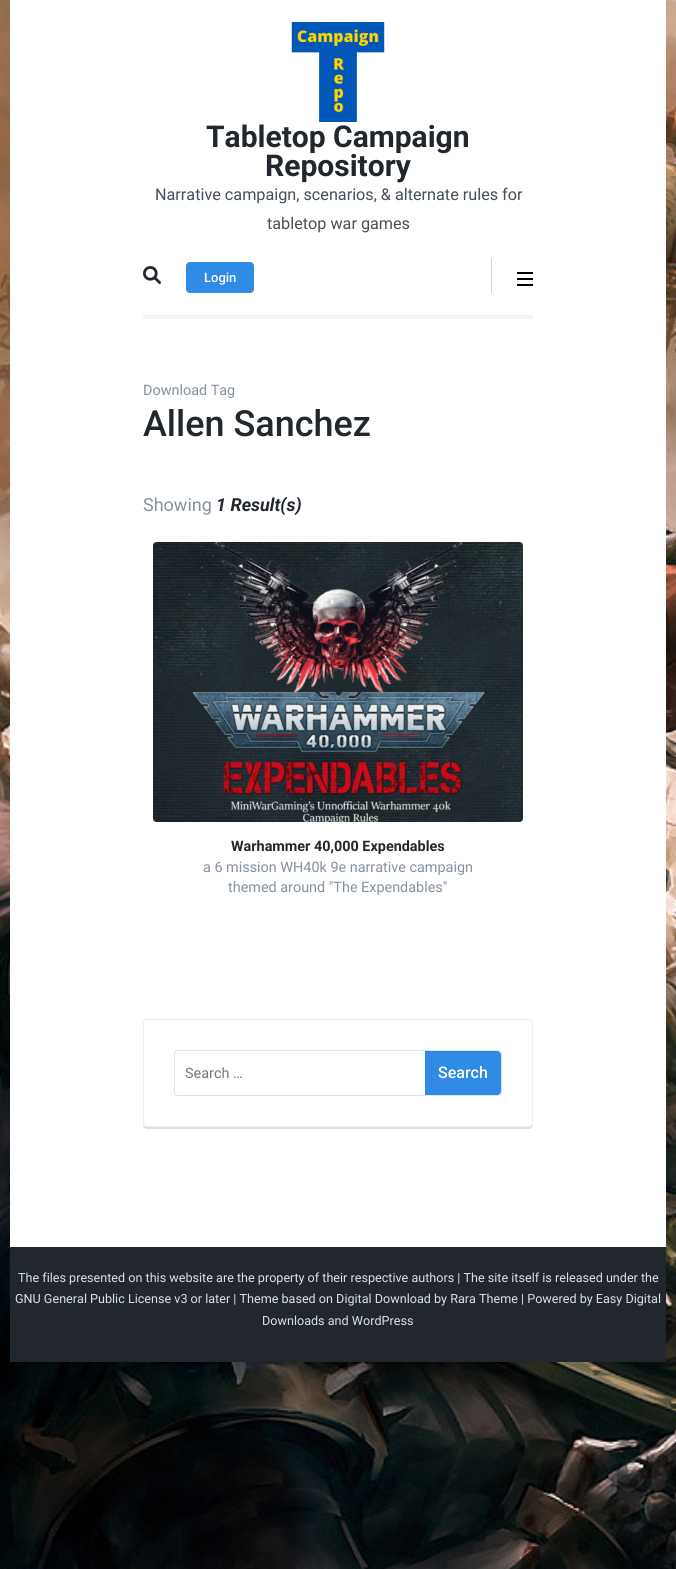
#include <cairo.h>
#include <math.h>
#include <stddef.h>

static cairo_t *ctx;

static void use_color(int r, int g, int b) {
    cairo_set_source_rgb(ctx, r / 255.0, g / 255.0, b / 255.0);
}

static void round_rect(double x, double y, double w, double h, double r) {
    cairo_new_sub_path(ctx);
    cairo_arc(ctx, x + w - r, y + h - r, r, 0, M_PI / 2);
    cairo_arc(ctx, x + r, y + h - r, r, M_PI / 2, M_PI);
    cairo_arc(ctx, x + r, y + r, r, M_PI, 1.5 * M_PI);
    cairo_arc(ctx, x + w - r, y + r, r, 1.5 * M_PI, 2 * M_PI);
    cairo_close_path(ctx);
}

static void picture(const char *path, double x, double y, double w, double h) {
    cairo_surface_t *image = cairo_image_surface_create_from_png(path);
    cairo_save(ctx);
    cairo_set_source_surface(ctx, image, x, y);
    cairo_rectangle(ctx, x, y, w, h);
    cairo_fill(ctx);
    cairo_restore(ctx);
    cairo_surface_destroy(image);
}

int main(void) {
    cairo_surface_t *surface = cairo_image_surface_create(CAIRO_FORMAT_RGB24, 676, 1569);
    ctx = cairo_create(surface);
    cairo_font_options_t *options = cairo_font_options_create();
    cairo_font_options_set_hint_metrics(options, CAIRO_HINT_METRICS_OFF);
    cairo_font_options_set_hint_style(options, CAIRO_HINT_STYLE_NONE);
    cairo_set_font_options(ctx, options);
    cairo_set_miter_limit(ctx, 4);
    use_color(255, 255, 255);
    cairo_paint(ctx);
    picture("img1.png", 0, 0, 676, 1569);
    use_color(255, 255, 255);
    cairo_rectangle(ctx, 10, 0, 656, 1247);
    cairo_fill(ctx);
    use_color(244, 244, 244);
    cairo_rectangle(ctx, 143, 315, 390, 4);
    cairo_fill(ctx);
    picture("img2.png", 291, 22, 94, 100);
    cairo_select_font_face(ctx, "Roboto", CAIRO_FONT_SLANT_NORMAL, CAIRO_FONT_WEIGHT_BOLD);
    cairo_set_font_size(ctx, 30);
    use_color(33, 39, 44);
    cairo_move_to(ctx, 206, 147);
    cairo_show_text(ctx, "Tabletop Campaign");
    cairo_move_to(ctx, 265, 176);
    cairo_show_text(ctx, "Repository");
    cairo_select_font_face(ctx, "Roboto", CAIRO_FONT_SLANT_NORMAL, CAIRO_FONT_WEIGHT_NORMAL);
    cairo_set_font_size(ctx, 16.2);
    use_color(69, 79, 89);
    cairo_move_to(ctx, 155, 200);
    cairo_show_text(ctx, "Narrative campaign, scenarios, & alternate rules for");
    cairo_move_to(ctx, 267, 229);
    cairo_show_text(ctx, "tabletop war games");
    use_color(211, 212, 213);
    cairo_rectangle(ctx, 491, 258, 1, 35);
    cairo_fill(ctx);
    picture("img3.png", 143, 266, 18, 18);
    use_color(47, 139, 230);
    round_rect(186.5, 262.5, 67, 30, 3.5);
    cairo_fill_preserve(ctx);
    cairo_set_line_width(ctx, 1);
    cairo_stroke(ctx);
    cairo_select_font_face(ctx, "Roboto Medium", CAIRO_FONT_SLANT_NORMAL, CAIRO_FONT_WEIGHT_NORMAL);
    cairo_set_font_size(ctx, 13);
    use_color(255, 255, 255);
    cairo_move_to(ctx, 204, 282);
    cairo_show_text(ctx, "Login");
    use_color(0, 0, 0);
    cairo_rectangle(ctx, 517, 272, 16, 2);
    cairo_fill(ctx);
    cairo_rectangle(ctx, 517, 278, 16, 2);
    cairo_fill(ctx);
    cairo_rectangle(ctx, 517, 284, 16, 2);
    cairo_fill(ctx);
    cairo_select_font_face(ctx, "Roboto", CAIRO_FONT_SLANT_NORMAL, CAIRO_FONT_WEIGHT_NORMAL);
    cairo_set_font_size(ctx, 14.4);
    use_color(134, 145, 157);
    cairo_move_to(ctx, 143, 395);
    cairo_show_text(ctx, "Download Tag");
    cairo_select_font_face(ctx, "Roboto Medium", CAIRO_FONT_SLANT_NORMAL, CAIRO_FONT_WEIGHT_NORMAL);
    cairo_set_font_size(ctx, 36);
    use_color(33, 39, 44);
    cairo_move_to(ctx, 143, 436);
    cairo_show_text(ctx, "Allen Sanchez");
    cairo_select_font_face(ctx, "Roboto", CAIRO_FONT_SLANT_NORMAL, CAIRO_FONT_WEIGHT_NORMAL);
    cairo_set_font_size(ctx, 18);
    use_color(134, 145, 157);
    cairo_move_to(ctx, 143, 511);
    cairo_show_text(ctx, "Showing");
    cairo_select_font_face(ctx, "Roboto", CAIRO_FONT_SLANT_ITALIC, CAIRO_FONT_WEIGHT_BOLD);
    use_color(33, 39, 44);
    cairo_move_to(ctx, 216, 511);
    cairo_show_text(ctx, "1 Result(s)");
    picture("img4.png", 153, 542, 370, 280);
    cairo_select_font_face(ctx, "Roboto", CAIRO_FONT_SLANT_NORMAL, CAIRO_FONT_WEIGHT_BOLD);
    cairo_set_font_size(ctx, 14.4);
    cairo_move_to(ctx, 231, 851);
    cairo_show_text(ctx, "Warhammer 40,000 Expendables");
    cairo_select_font_face(ctx, "Roboto", CAIRO_FONT_SLANT_NORMAL, CAIRO_FONT_WEIGHT_NORMAL);
    use_color(134, 145, 157);
    cairo_move_to(ctx, 203, 872);
    cairo_show_text(ctx, "a 6 mission WH40k 9e narrative campaign");
    cairo_move_to(ctx, 228, 892);
    cairo_show_text(ctx, "themed around \"The Expendables\"");
    use_color(218, 225, 231);
    cairo_new_path(ctx);
    cairo_move_to(ctx, 143, 1123);
    cairo_line_to(ctx, 143, 1125);
    cairo_curve_to(ctx, 143, 1127, 145, 1129, 147, 1129);
    cairo_line_to(ctx, 529, 1129);
    cairo_curve_to(ctx, 531, 1129, 533, 1127, 533, 1125);
    cairo_line_to(ctx, 533, 1123);
    cairo_curve_to(ctx, 533, 1125, 531, 1127, 529, 1127);
    cairo_line_to(ctx, 147, 1127);
    cairo_curve_to(ctx, 145, 1127, 143, 1125, 143, 1123);
    cairo_close_path(ctx);
    cairo_fill(ctx);
    round_rect(143.5, 1019.5, 389, 107, 3.5);
    cairo_set_source_rgba(ctx, 0.855, 0.882, 0.906, 0.5);
    cairo_stroke(ctx);
    round_rect(174.5, 1050.5, 327, 45, 3.5);
    use_color(218, 225, 231);
    cairo_stroke(ctx);
    use_color(117, 117, 117);
    cairo_move_to(ctx, 185, 1078);
    cairo_show_text(ctx, "Search …");
    use_color(47, 139, 230);
    cairo_new_path(ctx);
    cairo_move_to(ctx, 425.5, 1051.5);
    cairo_line_to(ctx, 497, 1051.5);
    cairo_curve_to(ctx, 499, 1051.5, 500.5, 1053, 500.5, 1055);
    cairo_line_to(ctx, 500.5, 1091);
    cairo_curve_to(ctx, 500.5, 1093, 499, 1094.5, 497, 1094.5);
    cairo_line_to(ctx, 425.5, 1094.5);
    cairo_close_path(ctx);
    cairo_fill_preserve(ctx);
    cairo_stroke(ctx);
    cairo_select_font_face(ctx, "Roboto Medium", CAIRO_FONT_SLANT_NORMAL, CAIRO_FONT_WEIGHT_NORMAL);
    cairo_set_font_size(ctx, 16);
    use_color(255, 255, 255);
    cairo_move_to(ctx, 438, 1078);
    cairo_show_text(ctx, "Search");
    use_color(33, 39, 44);
    cairo_rectangle(ctx, 10, 1247, 656, 115);
    cairo_fill(ctx);
    cairo_select_font_face(ctx, "Roboto", CAIRO_FONT_SLANT_NORMAL, CAIRO_FONT_WEIGHT_NORMAL);
    cairo_set_font_size(ctx, 12.6);
    use_color(218, 225, 231);
    cairo_move_to(ctx, 18, 1282);
    cairo_show_text(ctx, "The files presented on this website are the property of their respective authors | The site itself is released under the");
    cairo_move_to(ctx, 15, 1303);
    cairo_show_text(ctx, "GNU General Public License v3 or later | Theme based on Digital Download by Rara Theme | Powered by Easy Digital");
    cairo_move_to(ctx, 262, 1325);
    cairo_show_text(ctx, "Downloads and WordPress");
    cairo_surface_write_to_png(surface, "result.png");
    cairo_font_options_destroy(options);
    cairo_destroy(ctx);
    cairo_surface_destroy(surface);
    return 0;
}
